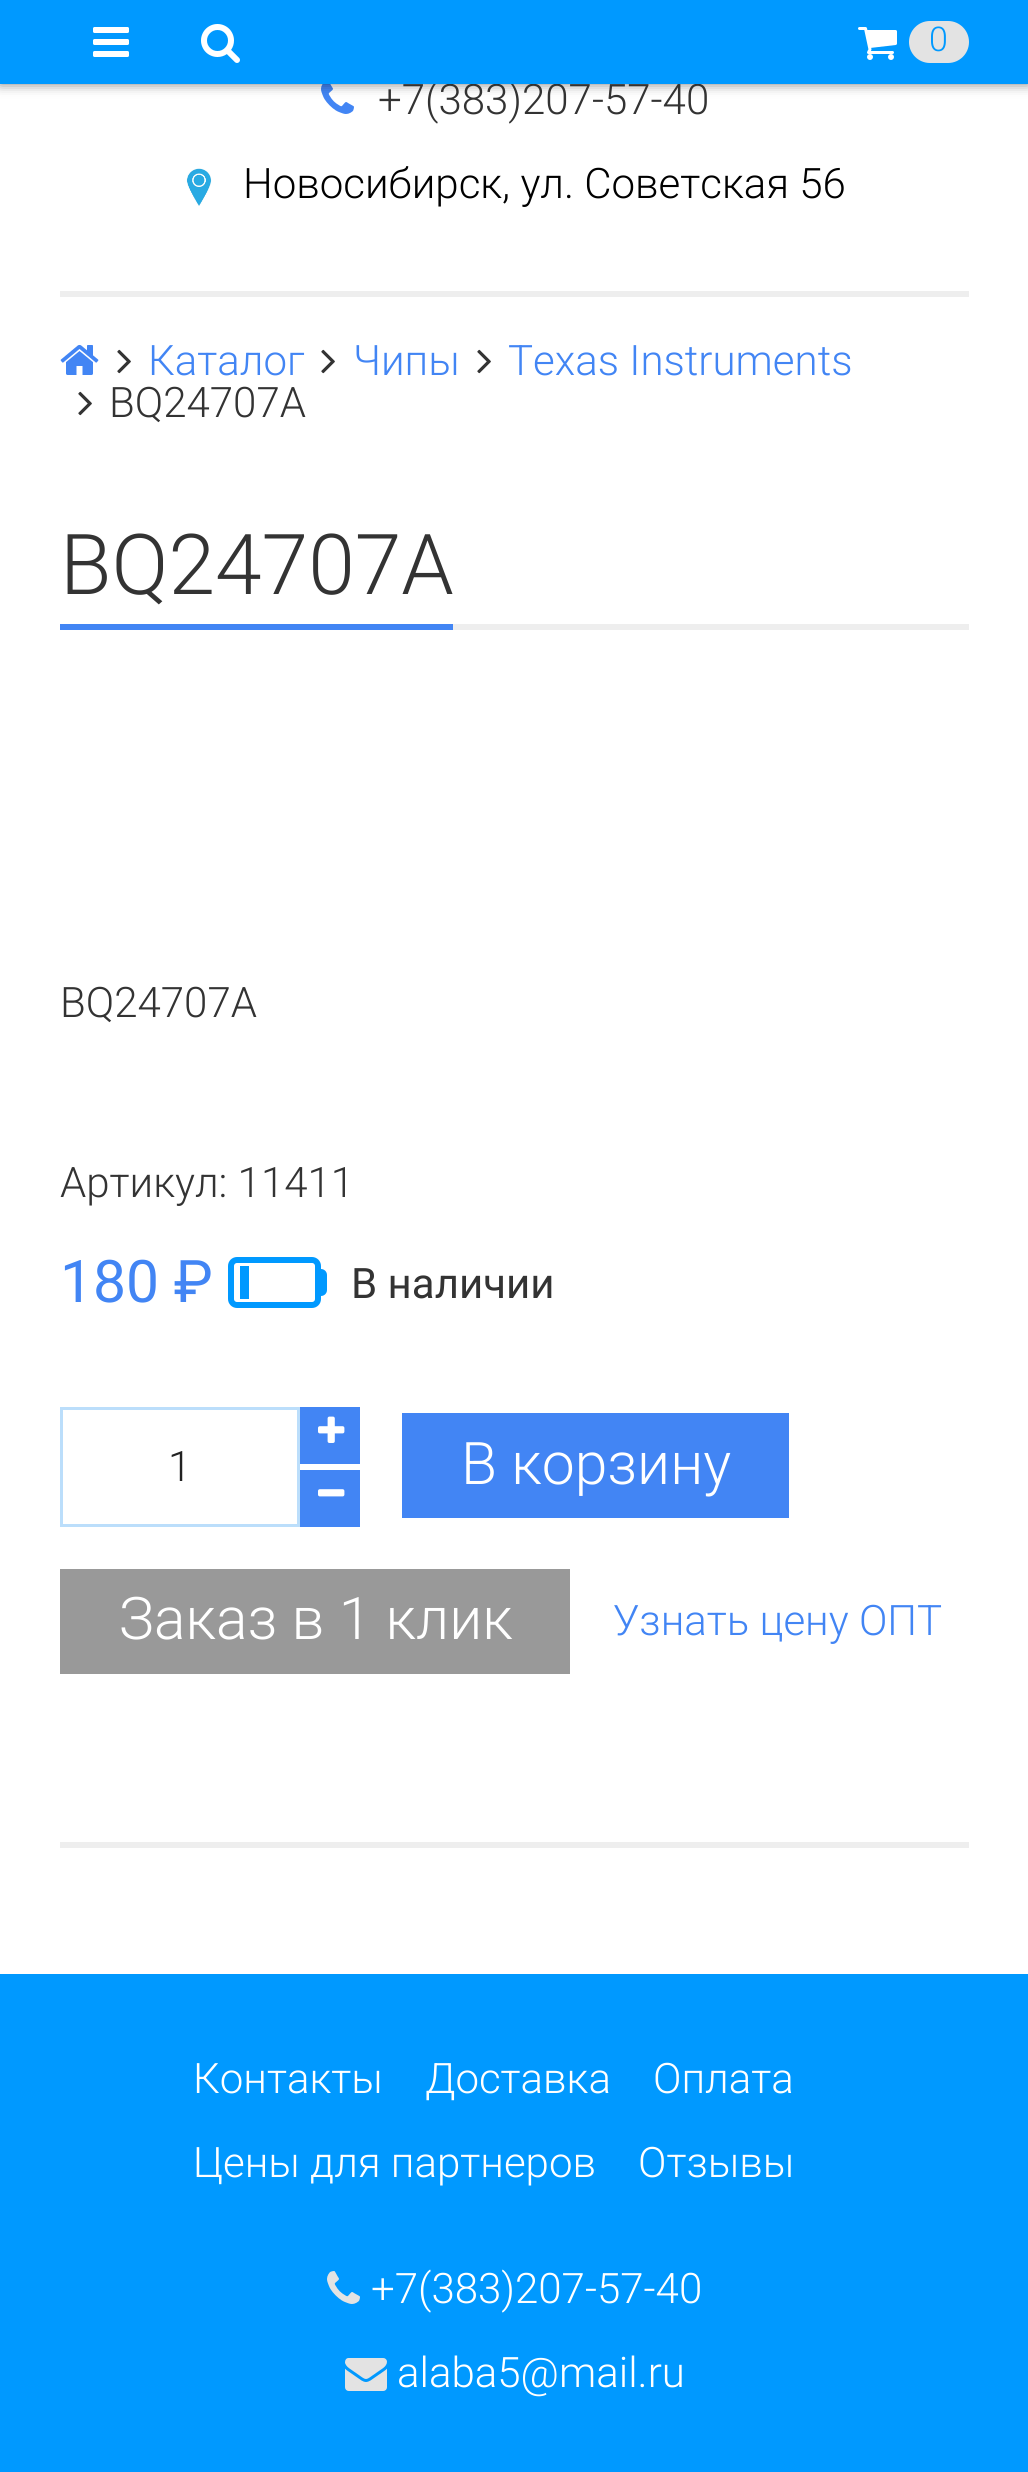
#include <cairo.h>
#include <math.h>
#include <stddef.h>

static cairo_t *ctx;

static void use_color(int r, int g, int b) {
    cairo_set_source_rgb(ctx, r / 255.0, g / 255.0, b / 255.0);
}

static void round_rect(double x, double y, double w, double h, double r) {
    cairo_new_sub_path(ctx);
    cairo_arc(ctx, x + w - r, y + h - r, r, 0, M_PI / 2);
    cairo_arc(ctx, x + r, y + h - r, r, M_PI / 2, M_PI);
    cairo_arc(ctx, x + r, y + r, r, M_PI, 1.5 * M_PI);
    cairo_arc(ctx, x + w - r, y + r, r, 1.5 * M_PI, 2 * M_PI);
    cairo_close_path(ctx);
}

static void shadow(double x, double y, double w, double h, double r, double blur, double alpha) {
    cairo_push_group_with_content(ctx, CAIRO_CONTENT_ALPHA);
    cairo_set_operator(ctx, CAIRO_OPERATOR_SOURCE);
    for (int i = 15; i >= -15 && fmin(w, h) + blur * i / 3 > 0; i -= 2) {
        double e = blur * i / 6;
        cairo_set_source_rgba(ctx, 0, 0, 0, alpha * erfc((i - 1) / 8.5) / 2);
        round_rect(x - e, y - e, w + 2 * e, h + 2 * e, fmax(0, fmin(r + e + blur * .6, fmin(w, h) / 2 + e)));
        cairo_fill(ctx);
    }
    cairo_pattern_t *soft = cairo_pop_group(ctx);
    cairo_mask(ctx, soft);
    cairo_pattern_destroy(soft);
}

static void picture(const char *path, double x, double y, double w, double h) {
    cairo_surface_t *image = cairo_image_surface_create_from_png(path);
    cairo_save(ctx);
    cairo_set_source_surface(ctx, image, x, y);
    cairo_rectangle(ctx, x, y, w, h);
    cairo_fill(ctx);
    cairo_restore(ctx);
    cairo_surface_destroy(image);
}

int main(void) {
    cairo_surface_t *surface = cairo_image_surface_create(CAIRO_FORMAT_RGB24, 1028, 2472);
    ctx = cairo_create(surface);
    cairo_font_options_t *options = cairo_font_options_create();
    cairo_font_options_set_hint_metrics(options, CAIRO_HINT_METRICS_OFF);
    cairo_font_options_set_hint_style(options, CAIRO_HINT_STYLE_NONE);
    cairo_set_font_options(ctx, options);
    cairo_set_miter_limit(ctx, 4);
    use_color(255, 255, 255);
    cairo_paint(ctx);
    picture("img4.png", 321, 84, 33, 30);
    use_color(0, 0, 0);
    shadow(0, 0, 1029, 84, 0, 6, 0.5);
    cairo_select_font_face(ctx, "Roboto Light", CAIRO_FONT_SLANT_NORMAL, CAIRO_FONT_WEIGHT_NORMAL);
    cairo_set_font_size(ctx, 42);
    use_color(51, 51, 51);
    cairo_move_to(ctx, 378, 114);
    cairo_show_text(ctx, "+7(383)207-57-40");
    use_color(0, 153, 255);
    cairo_rectangle(ctx, 0, 0, 1028, 84);
    cairo_fill(ctx);
    picture("img1.png", 93, 27, 36, 30);
    picture("img2.png", 201, 24, 39, 39);
    picture("img3.png", 858, 27, 39, 33);
    use_color(227, 227, 227);
    round_rect(909, 21, 60, 42, 21);
    cairo_fill(ctx);
    cairo_set_font_size(ctx, 34);
    use_color(0, 153, 255);
    cairo_move_to(ctx, 929, 51);
    cairo_show_text(ctx, "0");
    use_color(238, 238, 238);
    cairo_rectangle(ctx, 60, 291, 909, 6);
    cairo_fill(ctx);
    picture("img5.png", 186, 168, 26, 38);
    cairo_set_font_size(ctx, 42);
    use_color(0, 0, 0);
    cairo_move_to(ctx, 243, 198);
    cairo_show_text(ctx, "Новосибирск, ул. Советская 56");
    picture("img6.png", 60, 344, 39, 31);
    picture("img7.png", 117, 349, 14, 25);
    use_color(66, 133, 244);
    cairo_move_to(ctx, 148, 375);
    cairo_show_text(ctx, "Каталог");
    picture("img7.png", 321, 349, 14, 25);
    cairo_move_to(ctx, 353, 375);
    cairo_show_text(ctx, "Чипы");
    picture("img7.png", 477, 349, 14, 25);
    cairo_move_to(ctx, 508, 375);
    cairo_show_text(ctx, "Texas Instruments");
    picture("img7.png", 78, 391, 14, 25);
    use_color(51, 51, 51);
    cairo_move_to(ctx, 109, 417);
    cairo_show_text(ctx, "BQ24707A");
    use_color(238, 238, 238);
    cairo_rectangle(ctx, 453, 624, 516, 6);
    cairo_fill(ctx);
    use_color(66, 133, 244);
    cairo_rectangle(ctx, 60, 624, 393, 6);
    cairo_fill(ctx);
    cairo_set_font_size(ctx, 84);
    use_color(51, 51, 51);
    cairo_move_to(ctx, 60, 594);
    cairo_show_text(ctx, "BQ24707A");
    cairo_set_font_size(ctx, 42);
    cairo_move_to(ctx, 60, 1017);
    cairo_show_text(ctx, "BQ24707A");
    cairo_move_to(ctx, 60, 1197);
    cairo_show_text(ctx, "Артикул: 11411");
    cairo_select_font_face(ctx, "Roboto", CAIRO_FONT_SLANT_NORMAL, CAIRO_FONT_WEIGHT_NORMAL);
    cairo_set_font_size(ctx, 58.75);
    use_color(66, 133, 244);
    cairo_move_to(ctx, 60, 1302);
    cairo_show_text(ctx, "180 ₽");
    round_rect(231, 1260, 87, 45, 6);
    use_color(0, 153, 255);
    cairo_set_line_width(ctx, 6);
    cairo_stroke(ctx);
    cairo_rectangle(ctx, 240, 1266, 9, 33);
    cairo_fill(ctx);
    round_rect(315, 1269, 12, 27, 6);
    cairo_fill(ctx);
    cairo_set_font_size(ctx, 42);
    use_color(51, 51, 51);
    cairo_move_to(ctx, 351, 1298);
    cairo_show_text(ctx, "В наличии");
    cairo_rectangle(ctx, 61.5, 1408.5, 237, 117);
    use_color(187, 222, 251);
    cairo_set_line_width(ctx, 3);
    cairo_stroke(ctx);
    cairo_select_font_face(ctx, "Roboto Light", CAIRO_FONT_SLANT_NORMAL, CAIRO_FONT_WEIGHT_NORMAL);
    use_color(34, 34, 34);
    cairo_move_to(ctx, 168, 1481);
    cairo_show_text(ctx, "1");
    use_color(66, 133, 244);
    cairo_rectangle(ctx, 300, 1407, 60, 57);
    cairo_fill(ctx);
    picture("img8.png", 318, 1416, 27, 27);
    cairo_rectangle(ctx, 300, 1470, 60, 57);
    cairo_fill(ctx);
    picture("img9.png", 318, 1489, 27, 8);
    cairo_rectangle(ctx, 402, 1413, 387, 105);
    cairo_fill(ctx);
    cairo_set_font_size(ctx, 58.75);
    use_color(255, 255, 255);
    cairo_move_to(ctx, 461, 1484);
    cairo_show_text(ctx, "В корзину");
    use_color(153, 153, 153);
    cairo_rectangle(ctx, 60, 1569, 510, 105);
    cairo_fill(ctx);
    use_color(255, 255, 255);
    cairo_move_to(ctx, 119, 1639);
    cairo_show_text(ctx, "Заказ в 1 клик");
    cairo_set_font_size(ctx, 42);
    use_color(66, 133, 244);
    cairo_move_to(ctx, 613, 1635);
    cairo_show_text(ctx, "Узнать цену ОПТ");
    use_color(238, 238, 238);
    cairo_rectangle(ctx, 60, 1842, 909, 6);
    cairo_fill(ctx);
    use_color(0, 153, 255);
    cairo_rectangle(ctx, 0, 1974, 1028, 498);
    cairo_fill(ctx);
    use_color(255, 255, 255);
    cairo_move_to(ctx, 193, 2093);
    cairo_show_text(ctx, "Контакты");
    cairo_move_to(ctx, 425, 2093);
    cairo_show_text(ctx, "Доставка");
    cairo_move_to(ctx, 653, 2093);
    cairo_show_text(ctx, "Оплата");
    cairo_move_to(ctx, 193, 2177);
    cairo_show_text(ctx, "Цены для партнеров");
    cairo_move_to(ctx, 638, 2177);
    cairo_show_text(ctx, "Отзывы");
    picture("img10.png", 327, 2271, 33, 33);
    cairo_move_to(ctx, 371, 2303);
    cairo_show_text(ctx, "+7(383)207-57-40");
    picture("img11.png", 345, 2358, 42, 33);
    cairo_move_to(ctx, 397, 2387);
    cairo_show_text(ctx, "alaba5@mail.ru");
    cairo_surface_write_to_png(surface, "result.png");
    cairo_font_options_destroy(options);
    cairo_destroy(ctx);
    cairo_surface_destroy(surface);
    return 0;
}
